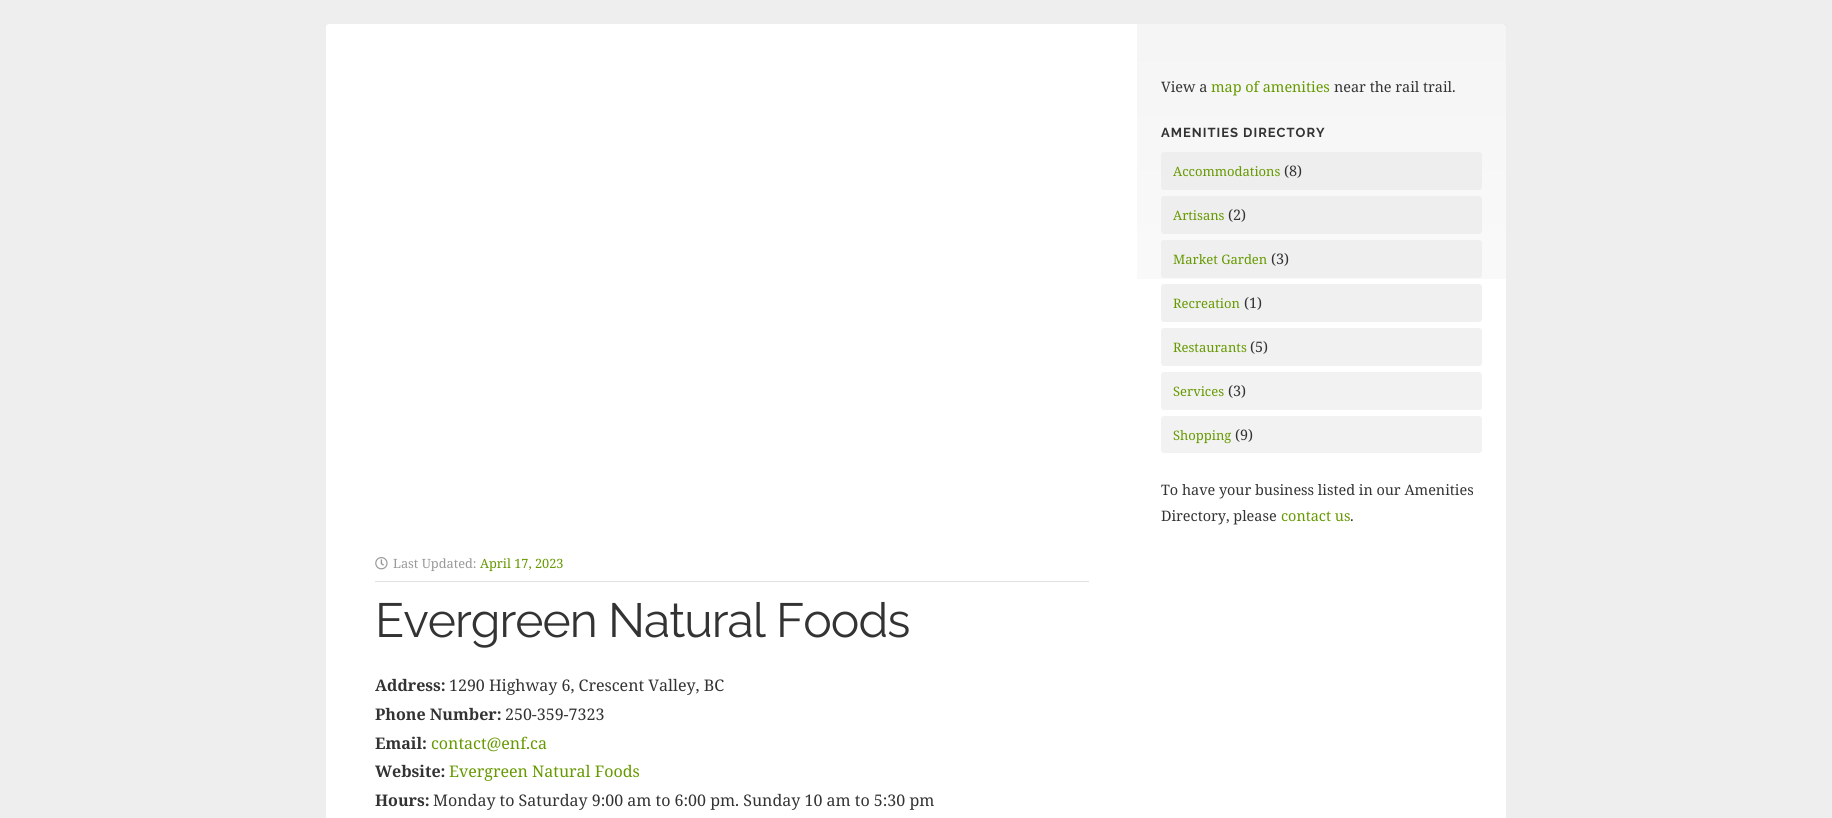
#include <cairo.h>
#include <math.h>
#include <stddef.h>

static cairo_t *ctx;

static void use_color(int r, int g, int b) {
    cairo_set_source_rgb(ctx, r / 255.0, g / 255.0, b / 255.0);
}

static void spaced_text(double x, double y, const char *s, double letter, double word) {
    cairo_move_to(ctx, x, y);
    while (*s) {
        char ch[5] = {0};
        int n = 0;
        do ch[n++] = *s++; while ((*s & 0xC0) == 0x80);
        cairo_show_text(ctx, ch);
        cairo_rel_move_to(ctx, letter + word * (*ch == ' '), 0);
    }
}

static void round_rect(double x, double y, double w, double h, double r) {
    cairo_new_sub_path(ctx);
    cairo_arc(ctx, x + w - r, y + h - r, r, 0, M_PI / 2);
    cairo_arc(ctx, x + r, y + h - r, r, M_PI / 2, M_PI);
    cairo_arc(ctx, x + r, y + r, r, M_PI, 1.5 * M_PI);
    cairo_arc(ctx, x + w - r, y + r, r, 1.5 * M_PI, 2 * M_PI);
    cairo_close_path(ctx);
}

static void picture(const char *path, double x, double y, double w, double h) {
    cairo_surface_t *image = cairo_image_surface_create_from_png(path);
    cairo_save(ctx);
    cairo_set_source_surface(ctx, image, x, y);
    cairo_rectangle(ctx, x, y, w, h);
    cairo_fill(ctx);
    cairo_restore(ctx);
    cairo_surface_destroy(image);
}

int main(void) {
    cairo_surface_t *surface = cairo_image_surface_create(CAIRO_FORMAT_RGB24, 1832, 818);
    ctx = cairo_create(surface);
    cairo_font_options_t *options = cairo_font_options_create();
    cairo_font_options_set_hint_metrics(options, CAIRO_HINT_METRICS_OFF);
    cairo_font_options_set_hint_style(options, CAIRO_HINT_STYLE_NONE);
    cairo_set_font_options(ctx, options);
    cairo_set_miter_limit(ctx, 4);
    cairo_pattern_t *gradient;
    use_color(238, 238, 238);
    cairo_paint(ctx);
    use_color(255, 255, 255);
    round_rect(326, 24, 1180, 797, 3);
    cairo_fill(ctx);
    gradient = cairo_pattern_create_linear(1322, 577, 1322, 24);
    cairo_pattern_add_color_stop_rgba(gradient, 0, 0, 0, 0, 0);
    cairo_pattern_add_color_stop_rgba(gradient, 1, 0, 0, 0, 0.04);
    cairo_set_source(ctx, gradient);
    cairo_pattern_destroy(gradient);
    cairo_rectangle(ctx, 1137, 24, 369, 255);
    cairo_fill(ctx);
    cairo_select_font_face(ctx, "Noto Serif", CAIRO_FONT_SLANT_NORMAL, CAIRO_FONT_WEIGHT_NORMAL);
    cairo_set_font_size(ctx, 14.4);
    use_color(51, 51, 51);
    cairo_move_to(ctx, 1161, 92);
    cairo_show_text(ctx, "View a");
    use_color(102, 153, 0);
    cairo_move_to(ctx, 1211, 92);
    cairo_show_text(ctx, "map of amenities");
    use_color(51, 51, 51);
    cairo_move_to(ctx, 1334, 92);
    cairo_show_text(ctx, "near the rail trail.");
    cairo_select_font_face(ctx, "Raleway", CAIRO_FONT_SLANT_NORMAL, CAIRO_FONT_WEIGHT_BOLD);
    cairo_set_font_size(ctx, 13);
    spaced_text(1161, 137, "AMENITIES DIRECTORY", 1, 0);
    use_color(238, 238, 238);
    round_rect(1161, 152, 321, 38, 3);
    cairo_fill(ctx);
    cairo_select_font_face(ctx, "Noto Serif", CAIRO_FONT_SLANT_NORMAL, CAIRO_FONT_WEIGHT_NORMAL);
    use_color(102, 153, 0);
    cairo_move_to(ctx, 1173, 176);
    cairo_show_text(ctx, "Accommodations");
    cairo_set_font_size(ctx, 14.4);
    use_color(51, 51, 51);
    cairo_move_to(ctx, 1284, 176);
    cairo_show_text(ctx, "(8)");
    use_color(238, 238, 238);
    round_rect(1161, 196, 321, 38, 3);
    cairo_fill(ctx);
    cairo_set_font_size(ctx, 13);
    use_color(102, 153, 0);
    cairo_move_to(ctx, 1173, 220);
    cairo_show_text(ctx, "Artisans");
    cairo_set_font_size(ctx, 14.4);
    use_color(51, 51, 51);
    cairo_move_to(ctx, 1228, 220);
    cairo_show_text(ctx, "(2)");
    use_color(239, 239, 239);
    round_rect(1161, 240, 321, 38, 3);
    cairo_fill(ctx);
    cairo_set_font_size(ctx, 13);
    use_color(102, 153, 0);
    cairo_move_to(ctx, 1173, 264);
    cairo_show_text(ctx, "Market Garden");
    cairo_set_font_size(ctx, 14.4);
    use_color(51, 51, 51);
    cairo_move_to(ctx, 1271, 264);
    cairo_show_text(ctx, "(3)");
    use_color(240, 240, 240);
    round_rect(1161, 284, 321, 38, 3);
    cairo_fill(ctx);
    cairo_set_font_size(ctx, 13);
    use_color(102, 153, 0);
    cairo_move_to(ctx, 1173, 308);
    cairo_show_text(ctx, "Recreation");
    cairo_set_font_size(ctx, 14.4);
    use_color(51, 51, 51);
    cairo_move_to(ctx, 1244, 308);
    cairo_show_text(ctx, "(1)");
    use_color(241, 241, 241);
    round_rect(1161, 328, 321, 38, 3);
    cairo_fill(ctx);
    cairo_set_font_size(ctx, 13);
    use_color(102, 153, 0);
    cairo_move_to(ctx, 1173, 352);
    cairo_show_text(ctx, "Restaurants");
    cairo_set_font_size(ctx, 14.4);
    use_color(51, 51, 51);
    cairo_move_to(ctx, 1250, 352);
    cairo_show_text(ctx, "(5)");
    use_color(242, 242, 242);
    round_rect(1161, 372, 321, 38, 3);
    cairo_fill(ctx);
    cairo_set_font_size(ctx, 13);
    use_color(102, 153, 0);
    cairo_move_to(ctx, 1173, 396);
    cairo_show_text(ctx, "Services");
    cairo_set_font_size(ctx, 14.4);
    use_color(51, 51, 51);
    cairo_move_to(ctx, 1228, 396);
    cairo_show_text(ctx, "(3)");
    use_color(242, 242, 242);
    round_rect(1161, 416, 321, 37, 3);
    cairo_fill(ctx);
    cairo_set_font_size(ctx, 13);
    use_color(102, 153, 0);
    cairo_move_to(ctx, 1173, 440);
    cairo_show_text(ctx, "Shopping");
    cairo_set_font_size(ctx, 14.4);
    use_color(51, 51, 51);
    cairo_move_to(ctx, 1235, 440);
    cairo_show_text(ctx, "(9)");
    cairo_move_to(ctx, 1161, 495);
    cairo_show_text(ctx, "To have your business listed in our Amenities");
    cairo_move_to(ctx, 1161, 521);
    cairo_show_text(ctx, "Directory, please");
    use_color(102, 153, 0);
    cairo_move_to(ctx, 1281, 521);
    cairo_show_text(ctx, "contact us");
    use_color(51, 51, 51);
    cairo_move_to(ctx, 1350, 521);
    cairo_show_text(ctx, ".");
    use_color(224, 224, 224);
    cairo_rectangle(ctx, 375, 581, 714, 1);
    cairo_fill(ctx);
    picture("img1.png", 375, 557, 13, 13);
    cairo_set_font_size(ctx, 12.75);
    use_color(153, 153, 153);
    cairo_move_to(ctx, 393, 568);
    cairo_show_text(ctx, "Last Updated:");
    use_color(102, 153, 0);
    cairo_move_to(ctx, 480, 568);
    cairo_show_text(ctx, "April 17, 2023");
    cairo_select_font_face(ctx, "Raleway", CAIRO_FONT_SLANT_NORMAL, CAIRO_FONT_WEIGHT_NORMAL);
    cairo_set_font_size(ctx, 48);
    use_color(51, 51, 51);
    spaced_text(375, 637, "Evergreen Natural Foods", -1, 0);
    cairo_select_font_face(ctx, "Noto Serif", CAIRO_FONT_SLANT_NORMAL, CAIRO_FONT_WEIGHT_BOLD);
    cairo_set_font_size(ctx, 16);
    cairo_move_to(ctx, 375, 691);
    cairo_show_text(ctx, "Address:");
    cairo_select_font_face(ctx, "Noto Serif", CAIRO_FONT_SLANT_NORMAL, CAIRO_FONT_WEIGHT_NORMAL);
    cairo_move_to(ctx, 449, 691);
    cairo_show_text(ctx, "1290 Highway 6, Crescent Valley, BC");
    cairo_select_font_face(ctx, "Noto Serif", CAIRO_FONT_SLANT_NORMAL, CAIRO_FONT_WEIGHT_BOLD);
    cairo_move_to(ctx, 375, 720);
    cairo_show_text(ctx, "Phone Number:");
    cairo_select_font_face(ctx, "Noto Serif", CAIRO_FONT_SLANT_NORMAL, CAIRO_FONT_WEIGHT_NORMAL);
    cairo_move_to(ctx, 505, 720);
    cairo_show_text(ctx, "250-359-7323");
    cairo_select_font_face(ctx, "Noto Serif", CAIRO_FONT_SLANT_NORMAL, CAIRO_FONT_WEIGHT_BOLD);
    cairo_move_to(ctx, 375, 749);
    cairo_show_text(ctx, "Email:");
    cairo_select_font_face(ctx, "Noto Serif", CAIRO_FONT_SLANT_NORMAL, CAIRO_FONT_WEIGHT_NORMAL);
    use_color(102, 153, 0);
    cairo_move_to(ctx, 431, 749);
    cairo_show_text(ctx, "contact@enf.ca");
    cairo_select_font_face(ctx, "Noto Serif", CAIRO_FONT_SLANT_NORMAL, CAIRO_FONT_WEIGHT_BOLD);
    use_color(51, 51, 51);
    cairo_move_to(ctx, 375, 777);
    cairo_show_text(ctx, "Website:");
    cairo_select_font_face(ctx, "Noto Serif", CAIRO_FONT_SLANT_NORMAL, CAIRO_FONT_WEIGHT_NORMAL);
    use_color(102, 153, 0);
    cairo_move_to(ctx, 449, 777);
    cairo_show_text(ctx, "Evergreen Natural Foods");
    cairo_select_font_face(ctx, "Noto Serif", CAIRO_FONT_SLANT_NORMAL, CAIRO_FONT_WEIGHT_BOLD);
    use_color(51, 51, 51);
    cairo_move_to(ctx, 375, 806);
    cairo_show_text(ctx, "Hours:");
    cairo_select_font_face(ctx, "Noto Serif", CAIRO_FONT_SLANT_NORMAL, CAIRO_FONT_WEIGHT_NORMAL);
    cairo_move_to(ctx, 433, 806);
    cairo_show_text(ctx, "Monday to Saturday 9:00 am to 6:00 pm. Sunday 10 am to 5:30 pm");
    cairo_surface_write_to_png(surface, "result.png");
    cairo_font_options_destroy(options);
    cairo_destroy(ctx);
    cairo_surface_destroy(surface);
    return 0;
}
